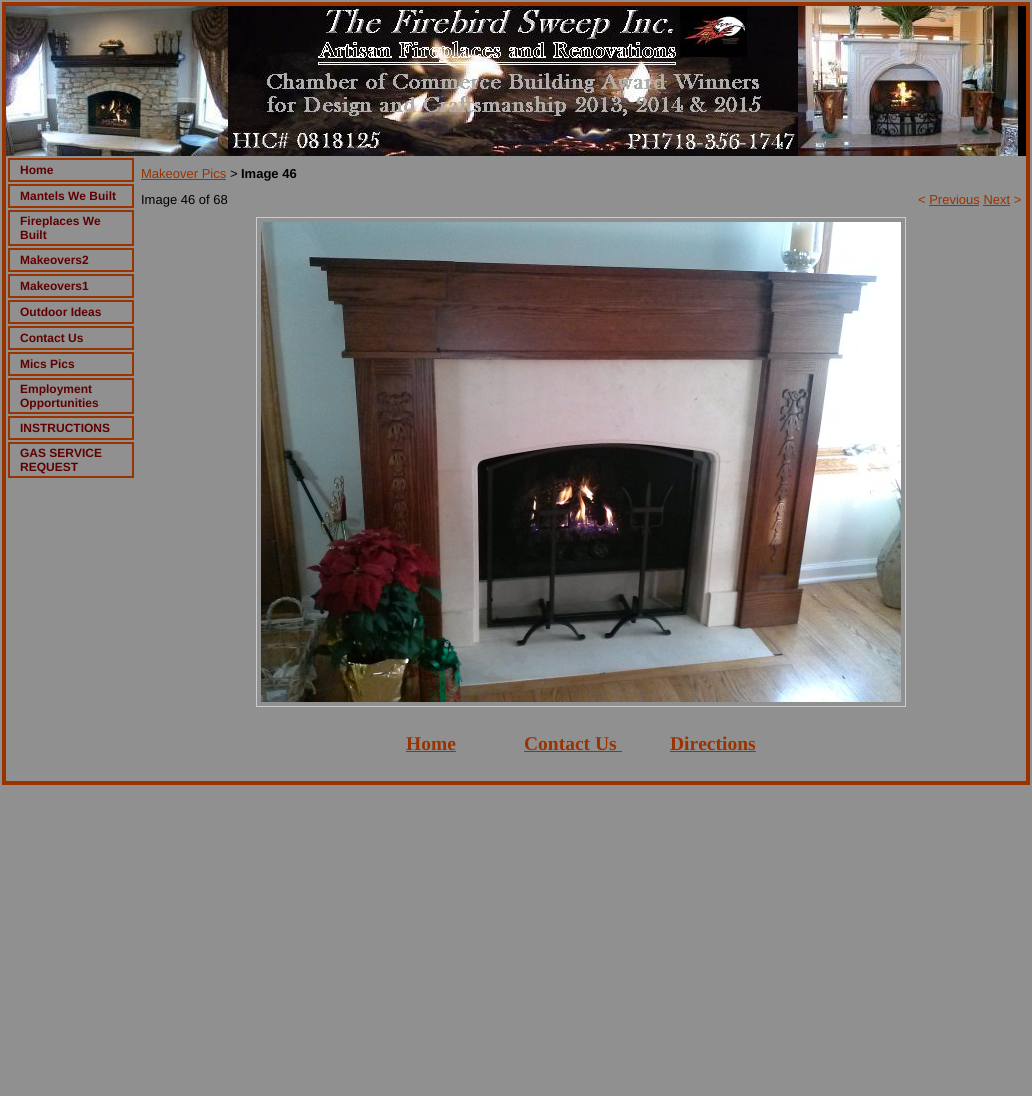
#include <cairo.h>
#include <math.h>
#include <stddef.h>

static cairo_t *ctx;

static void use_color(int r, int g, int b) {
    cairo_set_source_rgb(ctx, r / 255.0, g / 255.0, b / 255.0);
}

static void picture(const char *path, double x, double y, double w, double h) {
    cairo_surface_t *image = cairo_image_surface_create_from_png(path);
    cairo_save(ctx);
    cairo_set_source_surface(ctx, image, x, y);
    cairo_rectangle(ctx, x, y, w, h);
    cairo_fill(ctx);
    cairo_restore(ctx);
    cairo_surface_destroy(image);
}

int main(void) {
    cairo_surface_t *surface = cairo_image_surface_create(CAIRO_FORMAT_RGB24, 1032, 1096);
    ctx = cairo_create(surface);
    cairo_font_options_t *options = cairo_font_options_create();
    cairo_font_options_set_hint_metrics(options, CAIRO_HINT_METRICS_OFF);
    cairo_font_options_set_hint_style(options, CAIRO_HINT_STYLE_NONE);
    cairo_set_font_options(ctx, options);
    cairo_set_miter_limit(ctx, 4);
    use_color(144, 144, 144);
    cairo_paint(ctx);
    use_color(153, 51, 0);
    cairo_rectangle(ctx, 2, 2, 1028, 783);
    cairo_fill(ctx);
    use_color(0, 0, 0);
    cairo_rectangle(ctx, 1018, 6, 8, 150);
    cairo_fill(ctx);
    picture("img1.png", 6, 6, 1012, 150);
    use_color(144, 144, 144);
    cairo_rectangle(ctx, 6, 156, 1020, 625);
    cairo_fill(ctx);
    use_color(153, 51, 0);
    cairo_rectangle(ctx, 8, 158, 126, 24);
    cairo_fill(ctx);
    use_color(144, 144, 144);
    cairo_rectangle(ctx, 10, 160, 122, 20);
    cairo_fill(ctx);
    cairo_select_font_face(ctx, "Liberation Sans", CAIRO_FONT_SLANT_NORMAL, CAIRO_FONT_WEIGHT_BOLD);
    cairo_set_font_size(ctx, 12);
    use_color(96, 0, 0);
    cairo_move_to(ctx, 20, 174);
    cairo_show_text(ctx, "Home");
    use_color(153, 51, 0);
    cairo_rectangle(ctx, 8, 184, 126, 24);
    cairo_fill(ctx);
    use_color(144, 144, 144);
    cairo_rectangle(ctx, 10, 186, 122, 20);
    cairo_fill(ctx);
    use_color(96, 0, 0);
    cairo_move_to(ctx, 20, 200);
    cairo_show_text(ctx, "Mantels We Built");
    use_color(153, 51, 0);
    cairo_rectangle(ctx, 8, 210, 126, 36);
    cairo_fill(ctx);
    use_color(144, 144, 144);
    cairo_rectangle(ctx, 10, 212, 122, 32);
    cairo_fill(ctx);
    use_color(96, 0, 0);
    cairo_move_to(ctx, 20, 225);
    cairo_show_text(ctx, "Fireplaces We");
    cairo_move_to(ctx, 20, 239);
    cairo_show_text(ctx, "Built");
    use_color(153, 51, 0);
    cairo_rectangle(ctx, 8, 248, 126, 24);
    cairo_fill(ctx);
    use_color(144, 144, 144);
    cairo_rectangle(ctx, 10, 250, 122, 20);
    cairo_fill(ctx);
    use_color(96, 0, 0);
    cairo_move_to(ctx, 20, 264);
    cairo_show_text(ctx, "Makeovers2");
    use_color(153, 51, 0);
    cairo_rectangle(ctx, 8, 274, 126, 24);
    cairo_fill(ctx);
    use_color(144, 144, 144);
    cairo_rectangle(ctx, 10, 276, 122, 20);
    cairo_fill(ctx);
    use_color(96, 0, 0);
    cairo_move_to(ctx, 20, 290);
    cairo_show_text(ctx, "Makeovers1");
    use_color(153, 51, 0);
    cairo_rectangle(ctx, 8, 300, 126, 24);
    cairo_fill(ctx);
    use_color(144, 144, 144);
    cairo_rectangle(ctx, 10, 302, 122, 20);
    cairo_fill(ctx);
    use_color(96, 0, 0);
    cairo_move_to(ctx, 20, 316);
    cairo_show_text(ctx, "Outdoor Ideas");
    use_color(153, 51, 0);
    cairo_rectangle(ctx, 8, 326, 126, 24);
    cairo_fill(ctx);
    use_color(144, 144, 144);
    cairo_rectangle(ctx, 10, 328, 122, 20);
    cairo_fill(ctx);
    use_color(96, 0, 0);
    cairo_move_to(ctx, 20, 342);
    cairo_show_text(ctx, "Contact Us");
    use_color(153, 51, 0);
    cairo_rectangle(ctx, 8, 352, 126, 24);
    cairo_fill(ctx);
    use_color(144, 144, 144);
    cairo_rectangle(ctx, 10, 354, 122, 20);
    cairo_fill(ctx);
    use_color(96, 0, 0);
    cairo_move_to(ctx, 20, 368);
    cairo_show_text(ctx, "Mics Pics");
    use_color(153, 51, 0);
    cairo_rectangle(ctx, 8, 378, 126, 36);
    cairo_fill(ctx);
    use_color(144, 144, 144);
    cairo_rectangle(ctx, 10, 380, 122, 32);
    cairo_fill(ctx);
    use_color(96, 0, 0);
    cairo_move_to(ctx, 20, 393);
    cairo_show_text(ctx, "Employment");
    cairo_move_to(ctx, 20, 407);
    cairo_show_text(ctx, "Opportunities");
    use_color(153, 51, 0);
    cairo_rectangle(ctx, 8, 416, 126, 24);
    cairo_fill(ctx);
    use_color(144, 144, 144);
    cairo_rectangle(ctx, 10, 418, 122, 20);
    cairo_fill(ctx);
    use_color(96, 0, 0);
    cairo_move_to(ctx, 20, 432);
    cairo_show_text(ctx, "INSTRUCTIONS");
    use_color(153, 51, 0);
    cairo_rectangle(ctx, 8, 442, 126, 36);
    cairo_fill(ctx);
    use_color(144, 144, 144);
    cairo_rectangle(ctx, 10, 444, 122, 32);
    cairo_fill(ctx);
    use_color(96, 0, 0);
    cairo_move_to(ctx, 20, 457);
    cairo_show_text(ctx, "GAS SERVICE");
    cairo_move_to(ctx, 20, 471);
    cairo_show_text(ctx, "REQUEST");
    cairo_select_font_face(ctx, "Liberation Sans", CAIRO_FONT_SLANT_NORMAL, CAIRO_FONT_WEIGHT_NORMAL);
    cairo_set_font_size(ctx, 13);
    use_color(153, 51, 0);
    cairo_move_to(ctx, 141, 178);
    cairo_show_text(ctx, "Makeover Pics");
    cairo_rectangle(ctx, 141, 179, 85, 1);
    cairo_fill(ctx);
    cairo_select_font_face(ctx, "Liberation Mono", CAIRO_FONT_SLANT_NORMAL, CAIRO_FONT_WEIGHT_NORMAL);
    use_color(0, 0, 0);
    cairo_move_to(ctx, 230, 178);
    cairo_show_text(ctx, ">");
    cairo_select_font_face(ctx, "Liberation Sans", CAIRO_FONT_SLANT_NORMAL, CAIRO_FONT_WEIGHT_BOLD);
    cairo_move_to(ctx, 241, 178);
    cairo_show_text(ctx, "Image 46");
    cairo_select_font_face(ctx, "Liberation Sans", CAIRO_FONT_SLANT_NORMAL, CAIRO_FONT_WEIGHT_NORMAL);
    cairo_move_to(ctx, 141, 204);
    cairo_show_text(ctx, "Image 46 of 68");
    use_color(153, 51, 0);
    cairo_move_to(ctx, 918, 204);
    cairo_show_text(ctx, "< Previous Next >");
    cairo_rectangle(ctx, 929, 205, 50, 1);
    cairo_fill(ctx);
    cairo_rectangle(ctx, 983, 205, 27, 1);
    cairo_fill(ctx);
    cairo_rectangle(ctx, 256.5, 217.5, 649, 489);
    use_color(204, 204, 204);
    cairo_set_line_width(ctx, 1);
    cairo_stroke(ctx);
    picture("img2.png", 261, 222, 640, 480);
    cairo_select_font_face(ctx, "Liberation Serif", CAIRO_FONT_SLANT_NORMAL, CAIRO_FONT_WEIGHT_BOLD);
    cairo_set_font_size(ctx, 19.5);
    use_color(153, 51, 0);
    cairo_move_to(ctx, 406, 750);
    cairo_show_text(ctx, "Home");
    cairo_rectangle(ctx, 406, 751, 50, 1);
    cairo_fill(ctx);
    cairo_move_to(ctx, 524, 750);
    cairo_show_text(ctx, "Contact Us");
    cairo_rectangle(ctx, 524, 751, 98, 1);
    cairo_fill(ctx);
    cairo_move_to(ctx, 670, 750);
    cairo_show_text(ctx, "Directions");
    cairo_rectangle(ctx, 670, 751, 86, 1);
    cairo_fill(ctx);
    cairo_surface_write_to_png(surface, "result.png");
    cairo_font_options_destroy(options);
    cairo_destroy(ctx);
    cairo_surface_destroy(surface);
    return 0;
}
